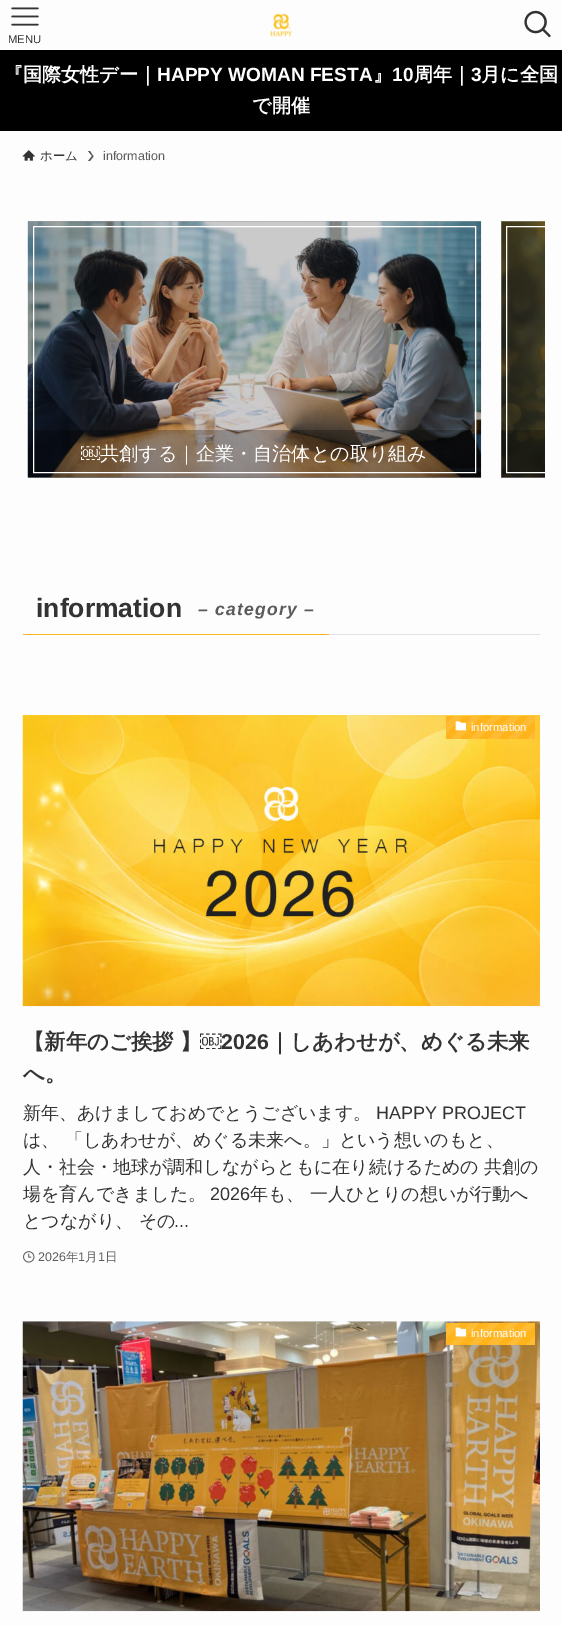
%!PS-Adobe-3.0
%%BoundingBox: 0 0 562 1626
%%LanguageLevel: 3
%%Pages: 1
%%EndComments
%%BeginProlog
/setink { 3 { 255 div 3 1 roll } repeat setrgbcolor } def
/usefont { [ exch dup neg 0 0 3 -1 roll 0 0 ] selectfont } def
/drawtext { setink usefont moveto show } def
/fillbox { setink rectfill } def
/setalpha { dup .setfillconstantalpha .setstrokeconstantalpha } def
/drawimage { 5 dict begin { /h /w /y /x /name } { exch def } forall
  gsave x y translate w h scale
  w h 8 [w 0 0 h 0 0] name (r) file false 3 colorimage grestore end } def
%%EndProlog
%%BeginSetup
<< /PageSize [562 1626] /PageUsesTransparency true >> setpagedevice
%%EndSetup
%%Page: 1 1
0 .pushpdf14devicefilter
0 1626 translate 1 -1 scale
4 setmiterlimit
0 0 562 1626 253 253 253 fillbox
(assets/img1.rgb) 270 13 23 24 drawimage
(assets/img2.rgb) 524 10 27 28 drawimage
(assets/img3.rgb) 11 7 28 19 drawimage
(MENU) 8 43 /LiberationSans-Regular 11.25 51 51 51 drawtext
0 50 562 81 0 0 0 fillbox
(『国際女性デー｜) 4 81 /WenQuanYiZenHei-Bold 19.1 255 255 255 drawtext
(HAPPY WOMAN FESTA) 157 81 /LiberationSans-Bold 19.1 255 255 255 drawtext
(』) 373 81 /WenQuanYiZenHei-Bold 19.1 255 255 255 drawtext
(10) 392 81 /LiberationSans-Bold 19.1 255 255 255 drawtext
(周年｜) 414 81 /WenQuanYiZenHei-Bold 19.1 255 255 255 drawtext
(3) 471 81 /LiberationSans-Bold 19.1 255 255 255 drawtext
(月に全国) 481 81 /WenQuanYiZenHei-Bold 19.1 255 255 255 drawtext
(で開催) 252 112 /WenQuanYiZenHei-Bold 19.1 255 255 255 drawtext
(assets/img4.rgb) 22 150 13 11 drawimage
(ホーム) 40 160 /WenQuanYiZenHei-Medium 12.5 51 51 51 drawtext
91 91 91 setink
90 151 moveto 88 151 lineto 92 156 lineto 88 161 lineto 90 161 lineto 93.5 156.5 lineto closepath fill
(information) 103 160 /LiberationSans-Regular 12.5 91 91 91 drawtext
28 221 453 257 162 162 162 fillbox
(assets/img5.rgb) 27 221 455 257 drawimage
0.25 setalpha
28 430 453 48 0 0 0 fillbox
1 setalpha
255 255 255 setink
33.5 226.5 442 246 rectstroke
(￼) 81 460 /LiberationSans-Regular 19.1 255 255 255 drawtext
(共創する｜企業・自治体との取り組み) 100 460 /WenQuanYiZenHei-Medium 19.1 255 255 255 drawtext
501 221 44 257 162 162 162 fillbox
(assets/img6.rgb) 501 221 44 257 drawimage
0.25 setalpha
501 430 44 48 0 0 0 fillbox
gsave
501 221 44 257 rectclip
1 setalpha
255 255 255 setink
506.5 226.5 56 246 rectstroke
grestore
1 setalpha
329 634 211 1 226 226 226 fillbox
23 634 306 1 255 180 27 fillbox
(information) 36 617 /LiberationSans-Bold 26.5 51 51 51 drawtext
/LiberationSans-BoldItalic 17.5 usefont
91 91 91 setink
198 615 moveto 1.25 0 (– category –) ashow
(assets/img7.rgb) 22 715 518 292 drawimage
gsave 446 716 moveto 535 716 lineto 535 739 lineto 446 739 lineto closepath clip newpath
<< /ShadingType 2 /ColorSpace /DeviceRGB /Coords [519 756 461 699] /Extend [true true] /Function << /FunctionType 3 /Domain [0 1] /Functions [<< /FunctionType 2 /Domain [0 1] /C0 [1 0.737 0.196] /C1 [1 0.737 0.196] /N 1 >> << /FunctionType 2 /Domain [0 1] /C0 [1 0.706 0.106] /C1 [1 0.706 0.106] /N 1 >> << /FunctionType 2 /Domain [0 1] /C0 [1 0.737 0.196] /C1 [1 0.737 0.196] /N 1 >> << /FunctionType 2 /Domain [0 1] /C0 [1 0.706 0.106] /C1 [1 0.706 0.106] /N 1 >> << /FunctionType 2 /Domain [0 1] /C0 [1 0.737 0.196] /C1 [1 0.737 0.196] /N 1 >> << /FunctionType 2 /Domain [0 1] /C0 [1 0.706 0.106] /C1 [1 0.706 0.106] /N 1 >> << /FunctionType 2 /Domain [0 1] /C0 [1 0.737 0.196] /C1 [1 0.737 0.196] /N 1 >> << /FunctionType 2 /Domain [0 1] /C0 [1 0.706 0.106] /C1 [1 0.706 0.106] /N 1 >> << /FunctionType 2 /Domain [0 1] /C0 [1 0.737 0.196] /C1 [1 0.737 0.196] /N 1 >> << /FunctionType 2 /Domain [0 1] /C0 [1 0.706 0.106] /C1 [1 0.706 0.106] /N 1 >> << /FunctionType 2 /Domain [0 1] /C0 [1 0.737 0.196] /C1 [1 0.737 0.196] /N 1 >> << /FunctionType 2 /Domain [0 1] /C0 [1 0.706 0.106] /C1 [1 0.706 0.106] /N 1 >>] /Bounds [0.08 0.17 0.25 0.33 0.42 0.5 0.58 0.67 0.75 0.83 0.92] /Encode [0 1 0 1 0 1 0 1 0 1 0 1 0 1 0 1 0 1 0 1 0 1 0 1] >> >> shfill grestore
(assets/img8.rgb) 455 721 11 10 drawimage
(information) 471 731 /LiberationSans-Regular 11.25 255 255 255 drawtext
(【新年のご挨拶 】) 23 1049 /WenQuanYiZenHei-Bold 21.4 51 51 51 drawtext
(￼2026) 200 1049 /LiberationSans-Bold 21.4 51 51 51 drawtext
(｜しあわせが、めぐる未来) 269 1049 /WenQuanYiZenHei-Bold 21.4 51 51 51 drawtext
(へ。) 23 1081 /WenQuanYiZenHei-Bold 21.4 51 51 51 drawtext
(新年、あけましておめでとうございます。) 23 1119 /WenQuanYiZenHei-Medium 18 51 51 51 drawtext
(HAPPY PROJECT) 376 1119 /LiberationSans-Regular 18 51 51 51 drawtext
(は、 「しあわせが、めぐる未来へ。」という想いのもと、) 23 1146 /WenQuanYiZenHei-Medium 18 51 51 51 drawtext
(人・社会・地球が調和しながらともに在り続けるための 共創の) 23 1173 /WenQuanYiZenHei-Medium 18 51 51 51 drawtext
(場を育んできました。) 23 1200 /WenQuanYiZenHei-Medium 18 51 51 51 drawtext
(2026) 210 1200 /LiberationSans-Regular 18 51 51 51 drawtext
(年も、 一人ひとりの想いが行動へ) 250 1200 /WenQuanYiZenHei-Medium 18 51 51 51 drawtext
(とつながり、 その) 23 1227 /WenQuanYiZenHei-Medium 18 51 51 51 drawtext
(...) 174 1227 /LiberationSans-Regular 18 51 51 51 drawtext
(assets/img9.rgb) 23 1251 12 12 drawimage
(2026) 38 1261 /LiberationSans-Regular 12.5 91 91 91 drawtext
(年) 66 1261 /WenQuanYiZenHei-Medium 12.5 91 91 91 drawtext
(1) 78 1261 /LiberationSans-Regular 12.5 91 91 91 drawtext
(月) 85 1261 /WenQuanYiZenHei-Medium 12.5 91 91 91 drawtext
(1) 98 1261 /LiberationSans-Regular 12.5 91 91 91 drawtext
(日) 105 1261 /WenQuanYiZenHei-Medium 12.5 91 91 91 drawtext
(assets/img10.rgb) 22 1321 518 291 drawimage
gsave 446 1323 moveto 535 1323 lineto 535 1345 lineto 446 1345 lineto closepath clip newpath
<< /ShadingType 2 /ColorSpace /DeviceRGB /Coords [519 1361 461 1304] /Extend [true true] /Function << /FunctionType 3 /Domain [0 1] /Functions [<< /FunctionType 2 /Domain [0 1] /C0 [1 0.737 0.196] /C1 [1 0.737 0.196] /N 1 >> << /FunctionType 2 /Domain [0 1] /C0 [1 0.706 0.106] /C1 [1 0.706 0.106] /N 1 >> << /FunctionType 2 /Domain [0 1] /C0 [1 0.737 0.196] /C1 [1 0.737 0.196] /N 1 >> << /FunctionType 2 /Domain [0 1] /C0 [1 0.706 0.106] /C1 [1 0.706 0.106] /N 1 >> << /FunctionType 2 /Domain [0 1] /C0 [1 0.737 0.196] /C1 [1 0.737 0.196] /N 1 >> << /FunctionType 2 /Domain [0 1] /C0 [1 0.706 0.106] /C1 [1 0.706 0.106] /N 1 >> << /FunctionType 2 /Domain [0 1] /C0 [1 0.737 0.196] /C1 [1 0.737 0.196] /N 1 >> << /FunctionType 2 /Domain [0 1] /C0 [1 0.706 0.106] /C1 [1 0.706 0.106] /N 1 >> << /FunctionType 2 /Domain [0 1] /C0 [1 0.737 0.196] /C1 [1 0.737 0.196] /N 1 >> << /FunctionType 2 /Domain [0 1] /C0 [1 0.706 0.106] /C1 [1 0.706 0.106] /N 1 >> << /FunctionType 2 /Domain [0 1] /C0 [1 0.737 0.196] /C1 [1 0.737 0.196] /N 1 >> << /FunctionType 2 /Domain [0 1] /C0 [1 0.706 0.106] /C1 [1 0.706 0.106] /N 1 >>] /Bounds [0.08 0.17 0.25 0.33 0.42 0.5 0.58 0.67 0.75 0.83 0.92] /Encode [0 1 0 1 0 1 0 1 0 1 0 1 0 1 0 1 0 1 0 1 0 1 0 1] >> >> shfill grestore
(assets/img11.rgb) 455 1327 11 10 drawimage
(information) 471 1337 /LiberationSans-Regular 11.25 255 255 255 drawtext
.poppdf14devicefilter showpage
%%EOF
